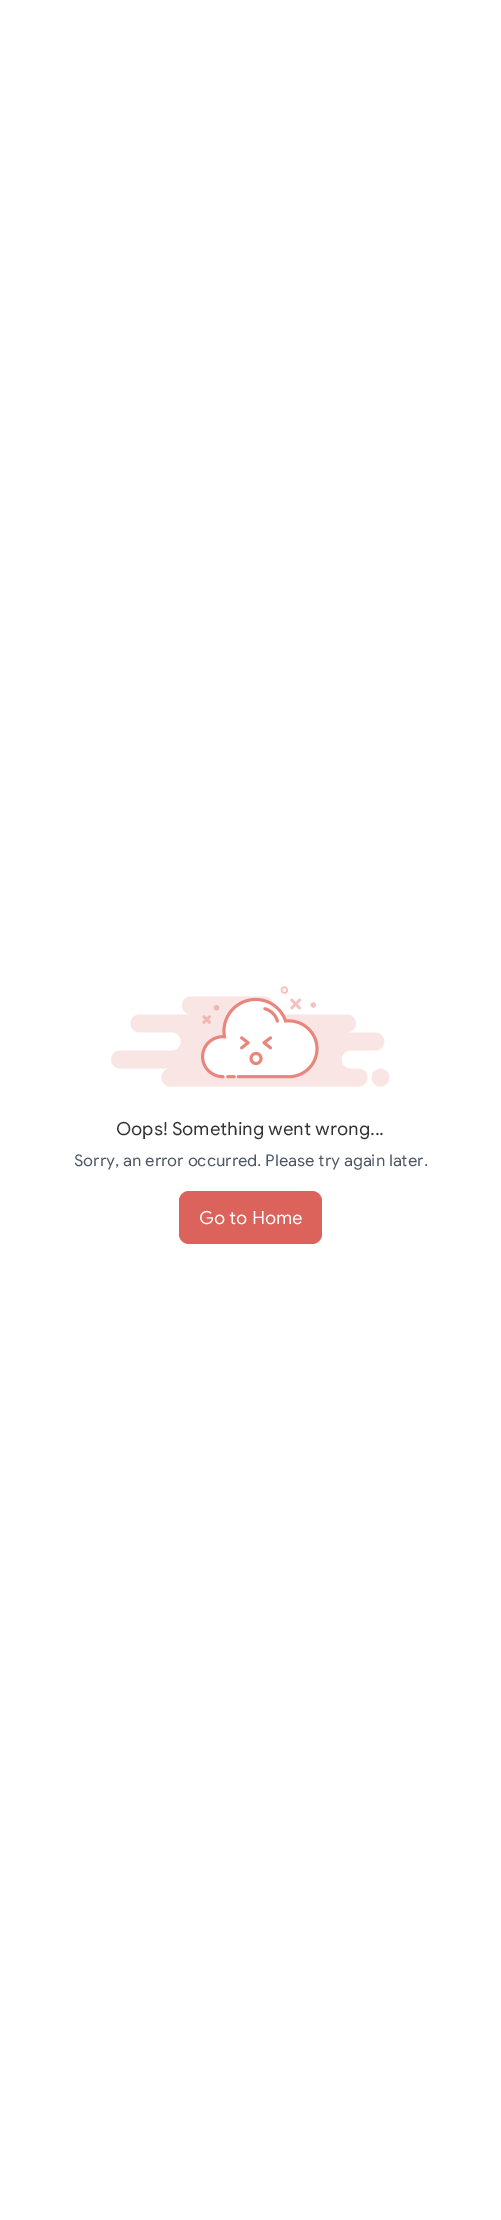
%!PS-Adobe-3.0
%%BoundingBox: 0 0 501 2220
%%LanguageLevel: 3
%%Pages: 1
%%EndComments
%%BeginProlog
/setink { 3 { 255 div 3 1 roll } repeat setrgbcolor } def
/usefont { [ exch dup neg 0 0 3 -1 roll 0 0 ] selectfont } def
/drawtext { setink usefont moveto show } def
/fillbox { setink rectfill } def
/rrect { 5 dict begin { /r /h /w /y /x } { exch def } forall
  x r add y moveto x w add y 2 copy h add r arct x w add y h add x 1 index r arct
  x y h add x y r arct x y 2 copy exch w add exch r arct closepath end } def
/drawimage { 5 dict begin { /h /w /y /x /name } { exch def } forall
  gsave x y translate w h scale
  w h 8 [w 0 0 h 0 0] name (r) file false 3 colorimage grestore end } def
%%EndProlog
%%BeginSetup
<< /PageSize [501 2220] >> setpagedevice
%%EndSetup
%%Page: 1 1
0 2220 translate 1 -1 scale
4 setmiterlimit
0 0 501 2220 255 255 255 fillbox
(assets/img1.rgb) 111 986 279 101 drawimage
(Oops! Something went wrong...) 116 1135 /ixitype-Regular 18 51 51 51 drawtext
(Sorry, an error occurred. Please try again later.) 74 1166 /ixitype-Regular 16 75 85 99 drawtext
220 99 91 setink
179 1191 143 53 10 rrect fill
(Go to Home) 199 1224 /ixitype-Regular 18 255 255 255 drawtext
showpage
%%EOF
